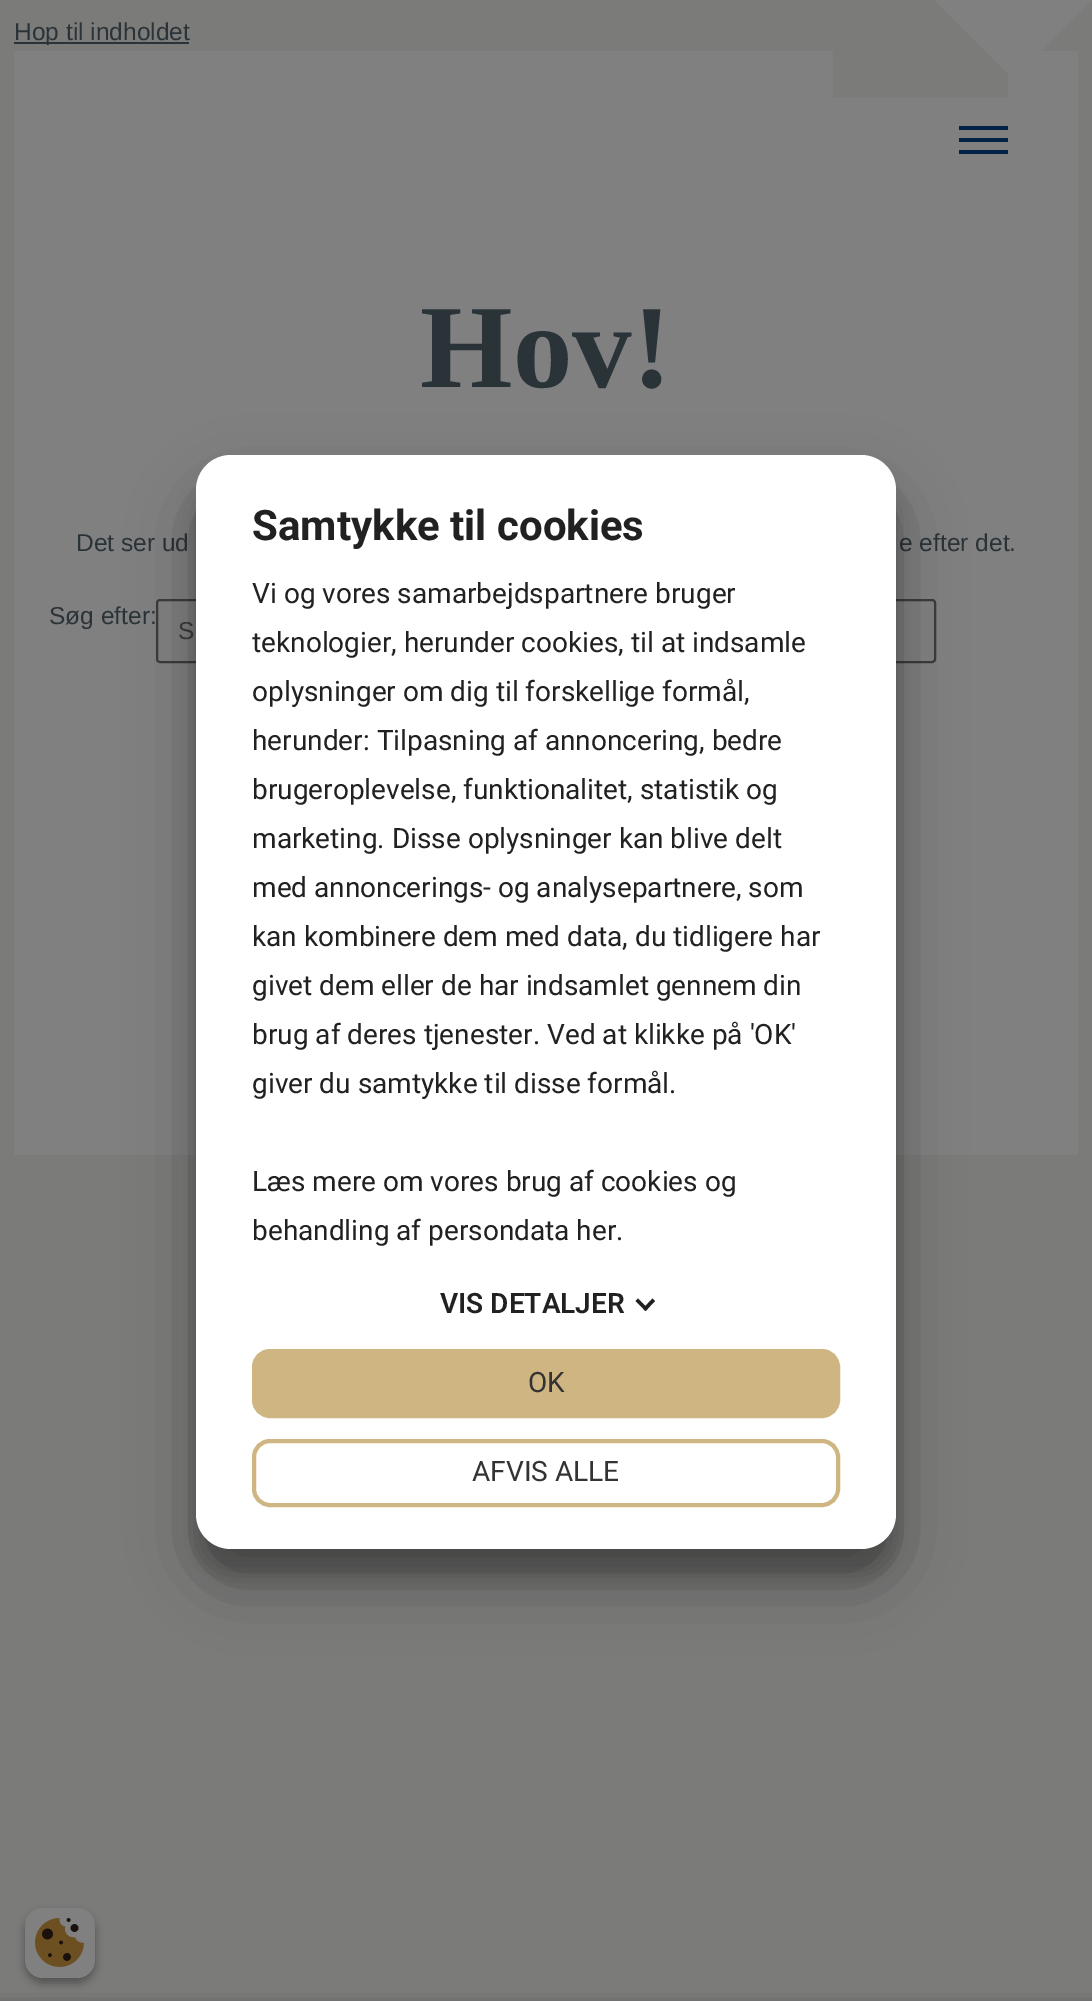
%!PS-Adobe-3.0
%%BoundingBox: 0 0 1092 2001
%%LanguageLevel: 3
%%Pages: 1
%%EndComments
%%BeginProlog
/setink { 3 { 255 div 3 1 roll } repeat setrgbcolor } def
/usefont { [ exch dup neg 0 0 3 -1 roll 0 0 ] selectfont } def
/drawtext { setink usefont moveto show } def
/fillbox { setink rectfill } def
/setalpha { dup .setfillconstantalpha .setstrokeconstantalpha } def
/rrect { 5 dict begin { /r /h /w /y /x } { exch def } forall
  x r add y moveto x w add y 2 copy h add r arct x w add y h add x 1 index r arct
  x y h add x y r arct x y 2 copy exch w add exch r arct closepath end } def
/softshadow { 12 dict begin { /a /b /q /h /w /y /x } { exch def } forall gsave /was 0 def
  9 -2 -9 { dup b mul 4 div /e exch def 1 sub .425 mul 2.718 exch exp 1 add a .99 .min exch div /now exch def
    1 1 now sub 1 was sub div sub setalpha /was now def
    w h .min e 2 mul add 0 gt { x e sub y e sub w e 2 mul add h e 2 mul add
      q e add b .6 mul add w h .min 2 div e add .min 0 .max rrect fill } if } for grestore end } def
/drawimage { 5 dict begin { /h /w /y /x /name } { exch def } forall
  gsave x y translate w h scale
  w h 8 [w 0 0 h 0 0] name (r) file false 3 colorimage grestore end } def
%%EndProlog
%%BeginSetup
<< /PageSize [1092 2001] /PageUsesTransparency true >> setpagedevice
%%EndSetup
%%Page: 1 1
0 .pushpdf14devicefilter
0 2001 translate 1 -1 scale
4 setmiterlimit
0 0 1092 2001 123 123 122 fillbox
14 42 175 2 42 51 56 fillbox
(Hop til indholdet) 14 40 /LiberationSans-Regular 24.5 42 51 56 drawtext
14 51 1064 1104 128 128 128 fillbox
833 51 175 47 123 123 122 fillbox
128 128 128 setink
934 0 moveto 1092 0 lineto 1013 79 lineto closepath fill
959 126 49 4 0 34 68 fillbox
959 138 49 4 0 34 68 fillbox
959 150 49 4 0 34 68 fillbox
(Hov!) 420 387 /LiberationSerif-Bold 119 42 51 56 drawtext
(Det ser ud) 76 551 /LiberationSans-Regular 24.5 42 51 56 drawtext
(e efter det.) 899 551 /LiberationSans-Regular 24.5 42 51 56 drawtext
(Søg efter:) 49 624 /LiberationSans-Regular 24.5 42 51 56 drawtext
59 59 59 setink
2 setlinewidth
157 600 778 62 3 rrect stroke
(S) 178 639 /LiberationSans-Regular 24.5 59 59 59 drawtext
0 0 0 setink
196 481 700 1094 35 10.5 0.22 softshadow
196 488 700 1094 35 33 0.3 softshadow
255 255 255 setink
196 455 700 1094 35 rrect fill
(Samtykke til cookies) 252 540 /Roboto-Bold 42 33 33 33 drawtext
(Vi og vores samarbejdspartnere bruger) 252 603 /Roboto-Regular 28 33 33 33 drawtext
(teknologier, herunder cookies, til at indsamle) 252 652 /Roboto-Regular 28 33 33 33 drawtext
(oplysninger om dig til forskellige formål,) 252 701 /Roboto-Regular 28 33 33 33 drawtext
(herunder: Tilpasning af annoncering, bedre) 252 750 /Roboto-Regular 28 33 33 33 drawtext
(brugeroplevelse, funktionalitet, statistik og) 252 799 /Roboto-Regular 28 33 33 33 drawtext
(marketing. Disse oplysninger kan blive delt) 252 848 /Roboto-Regular 28 33 33 33 drawtext
(med annoncerings- og analysepartnere, som) 252 897 /Roboto-Regular 28 33 33 33 drawtext
(kan kombinere dem med data, du tidligere har) 252 946 /Roboto-Regular 28 33 33 33 drawtext
(givet dem eller de har indsamlet gennem din) 252 995 /Roboto-Regular 28 33 33 33 drawtext
(brug af deres tjenester. Ved at klikke på 'OK') 252 1044 /Roboto-Regular 28 33 33 33 drawtext
(giver du samtykke til disse formål.) 252 1093 /Roboto-Regular 28 33 33 33 drawtext
(Læs mere om vores brug af cookies og) 252 1191 /Roboto-Regular 28 33 33 33 drawtext
(behandling af persondata her.) 252 1240 /Roboto-Regular 28 33 33 33 drawtext
(VIS DETALJER) 440 1313 /Roboto-SemiBold 28 33 33 33 drawtext
652.5 1298.5 moveto 655 1301 lineto 645.5 1311 lineto 643 1308.5 lineto closepath fill
638 1298.5 moveto 648 1308.5 lineto 645.5 1311 lineto 635.5 1301 lineto closepath fill
206 181 130 setink
254 1351 584 65 16 rrect gsave fill grestore
4 setlinewidth
stroke
(OK) 528 1392 /Roboto-Regular 28 51 51 51 drawtext
206 181 130 setink
254 1441 584 64 16 rrect stroke
(AFVIS ALLE) 472 1481 /Roboto-Regular 28 51 51 51 drawtext
0 0 0 setink
25 1913 70 70 18 5 0.23 softshadow
25 1913 70 70 18 5 0.16 softshadow
128 128 128 setink
25 1908 70 70 18 rrect fill
(assets/img1.rgb) 35 1918 49 49 drawimage
0 0 0 setink
-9 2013 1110 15 0 9 1 softshadow
.poppdf14devicefilter showpage
%%EOF
